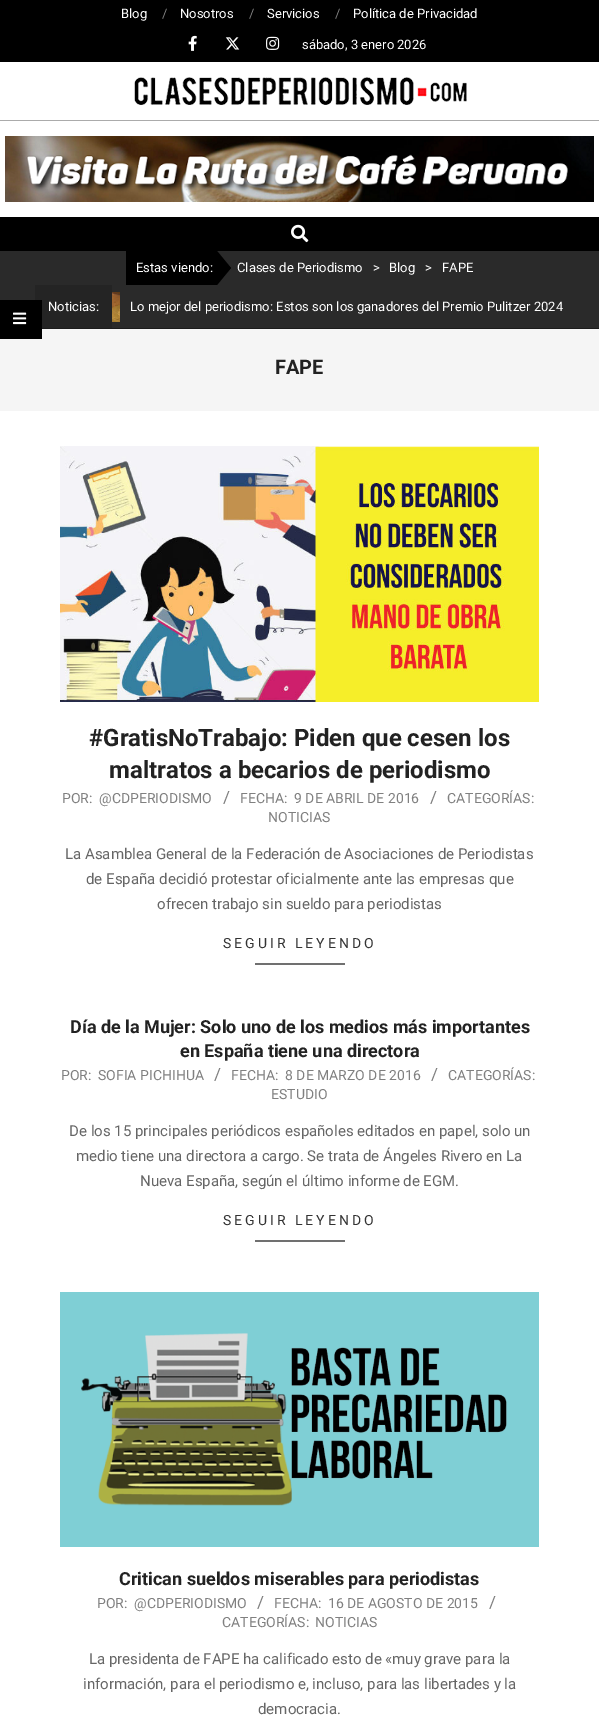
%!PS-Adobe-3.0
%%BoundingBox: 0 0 599 1733
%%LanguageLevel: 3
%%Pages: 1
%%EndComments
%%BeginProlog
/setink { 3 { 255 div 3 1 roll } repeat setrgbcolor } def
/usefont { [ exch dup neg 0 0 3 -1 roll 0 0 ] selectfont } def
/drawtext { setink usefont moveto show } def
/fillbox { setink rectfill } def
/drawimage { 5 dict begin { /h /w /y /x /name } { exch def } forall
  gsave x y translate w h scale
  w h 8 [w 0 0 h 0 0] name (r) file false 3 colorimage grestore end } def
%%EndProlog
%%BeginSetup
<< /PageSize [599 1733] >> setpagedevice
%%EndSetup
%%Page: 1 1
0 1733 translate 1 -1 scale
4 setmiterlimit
0 0 599 1733 255 255 255 fillbox
0 0 599 62 0 0 0 fillbox
(Blog) 121 18 /Roboto-Regular 13 255 255 255 drawtext
(/) 162 18 /Roboto-Regular 13 128 128 128 drawtext
(Nosotros) 180 18 /Roboto-Regular 13 255 255 255 drawtext
(/) 249 18 /Roboto-Regular 13 128 128 128 drawtext
(Servicios) 267 18 /Roboto-Regular 13 255 255 255 drawtext
(/) 335 18 /Roboto-Regular 13 128 128 128 drawtext
(Política de Privacidad) 353 18 /Roboto-Regular 13 255 255 255 drawtext
(assets/img1.rgb) 188 35 9 16 drawimage
(assets/img2.rgb) 225 37 15 13 drawimage
(assets/img3.rgb) 266 36 14 14 drawimage
(sábado, 3 enero 2026) 302 49 /Roboto-Regular 13 255 255 255 drawtext
(assets/img4.rgb) 134 77 333 28 drawimage
0 120 599 1 171 171 171 fillbox
(assets/img5.rgb) 5 136 589 66 drawimage
0 217 599 34 0 0 0 fillbox
(assets/img6.rgb) 291 224 18 19 drawimage
0 251 599 77 42 42 42 fillbox
35 285 77 43 36 36 36 fillbox
0 329 599 82 245 245 245 fillbox
0 300 42 39 0 0 0 fillbox
(assets/img7.rgb) 13 312 14 13 drawimage
42 328 557 1 28 28 28 fillbox
126 251 91 34 0 0 0 fillbox
(Estas viendo:) 136 272 /Roboto-Regular 13 255 255 255 drawtext
0 0 0 setink
217 285 moveto 217 251 lineto 231 268 lineto closepath fill
(Clases de Periodismo) 237 272 /Roboto-Regular 13 255 255 255 drawtext
(>) 373 272 /Roboto-Regular 13 255 255 255 drawtext
(Blog) 389 272 /Roboto-Regular 13 255 255 255 drawtext
(>) 425 272 /Roboto-Regular 13 255 255 255 drawtext
(FAPE) 442 272 /Roboto-Regular 13 255 255 255 drawtext
(Noticias:) 48 311 /Roboto-Regular 13 255 255 255 drawtext
(assets/img8.rgb) 112 292 8 30 drawimage
(Lo mejor del periodismo: Estos son los ganadores del Premio Pulitzer 2024) 130 311 /Roboto-Regular 13 255 255 255 drawtext
(FAPE) 275 374 /Roboto-Bold 20 34 34 34 drawtext
(assets/img9.rgb) 60 446 479 256 drawimage
(#GratisNoTrabajo: Piden que cesen los) 89 746 /Roboto-Bold 24 34 34 34 drawtext
(maltratos a becarios de periodismo) 109 778 /Roboto-Bold 24 34 34 34 drawtext
(POR:) 62 803 /Roboto-Regular 14 128 128 128 drawtext
(@CDPERIODISMO) 99 803 /Roboto-Regular 14 128 128 128 drawtext
(/) 223 803 /Roboto-Regular 17 128 128 128 drawtext
(FECHA:) 240 803 /Roboto-Regular 14 128 128 128 drawtext
(9 DE ABRIL DE 2016) 294 803 /Roboto-Regular 14 128 128 128 drawtext
(/) 430 803 /Roboto-Regular 17 128 128 128 drawtext
(CATEGORÍAS:) 447 803 /Roboto-Regular 14 128 128 128 drawtext
(NOTICIAS) 268 822 /Roboto-Regular 14 128 128 128 drawtext
(La Asamblea General de la Federación de Asociaciones de Periodistas) 65 859 /Roboto-Regular 15 102 102 102 drawtext
(de España decidió protestar oficialmente ante las empresas que) 86 884 /Roboto-Regular 15 102 102 102 drawtext
(ofrecen trabajo sin sueldo para periodistas) 157 909 /Roboto-Regular 15 102 102 102 drawtext
/Roboto-Regular 14 usefont
51 51 51 setink
223 948 moveto 3 0 (SEGUIR LEYENDO) ashow
255 963 90 2 112 112 112 fillbox
(Día de la Mujer: Solo uno de los medios más importantes) 70 1033 /Roboto-Bold 18 34 34 34 drawtext
(en España tiene una directora) 180 1057 /Roboto-Bold 18 34 34 34 drawtext
(POR:) 61 1080 /Roboto-Regular 14 128 128 128 drawtext
(SOFIA PICHIHUA) 98 1080 /Roboto-Regular 14 128 128 128 drawtext
(/) 214 1080 /Roboto-Regular 17 128 128 128 drawtext
(FECHA:) 231 1080 /Roboto-Regular 14 128 128 128 drawtext
(8 DE MARZO DE 2016) 285 1080 /Roboto-Regular 14 128 128 128 drawtext
(/) 431 1080 /Roboto-Regular 17 128 128 128 drawtext
(CATEGORÍAS:) 448 1080 /Roboto-Regular 14 128 128 128 drawtext
(ESTUDIO) 271 1099 /Roboto-Regular 14 128 128 128 drawtext
(De los 15 principales periódicos españoles editados en papel, solo un) 69 1136 /Roboto-Regular 15 102 102 102 drawtext
(medio tiene una directora a cargo. Se trata de Ángeles Rivero en La) 76 1161 /Roboto-Regular 15 102 102 102 drawtext
(Nueva España, según el último informe de EGM.) 140 1186 /Roboto-Regular 15 102 102 102 drawtext
/Roboto-Regular 14 usefont
51 51 51 setink
223 1225 moveto 3 0 (SEGUIR LEYENDO) ashow
255 1240 90 2 112 112 112 fillbox
(assets/img10.rgb) 60 1292 479 255 drawimage
(Critican sueldos miserables para periodistas) 119 1585 /Roboto-Bold 18 34 34 34 drawtext
(POR:) 97 1608 /Roboto-Regular 14 128 128 128 drawtext
(@CDPERIODISMO) 134 1608 /Roboto-Regular 14 128 128 128 drawtext
(/) 257 1608 /Roboto-Regular 17 128 128 128 drawtext
(FECHA:) 274 1608 /Roboto-Regular 14 128 128 128 drawtext
(16 DE AGOSTO DE 2015) 328 1608 /Roboto-Regular 14 128 128 128 drawtext
(/) 489 1608 /Roboto-Regular 17 128 128 128 drawtext
(CATEGORÍAS:) 222 1627 /Roboto-Regular 14 128 128 128 drawtext
(NOTICIAS) 315 1627 /Roboto-Regular 14 128 128 128 drawtext
(La presidenta de FAPE ha calificado esto de «muy grave para la) 89 1664 /Roboto-Regular 15 102 102 102 drawtext
(información, para el periodismo e, incluso, para las libertades y la) 83 1689 /Roboto-Regular 15 102 102 102 drawtext
(democracia.) 258 1714 /Roboto-Regular 15 102 102 102 drawtext
showpage
%%EOF
